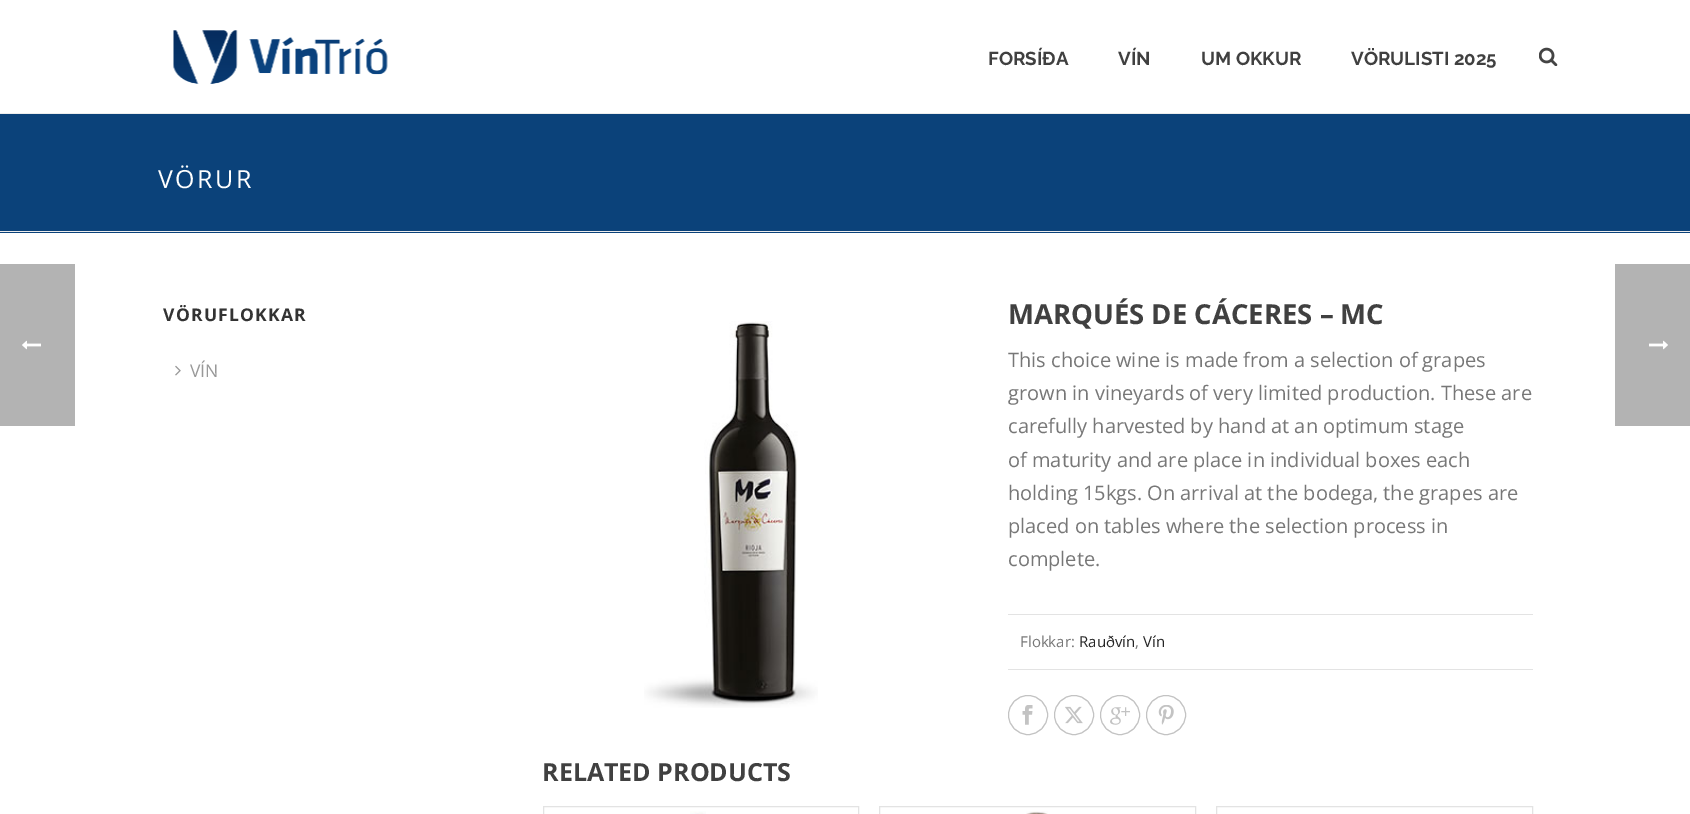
%!PS-Adobe-3.0
%%BoundingBox: 0 0 1690 814
%%LanguageLevel: 3
%%Pages: 1
%%EndComments
%%BeginProlog
/setink { 3 { 255 div 3 1 roll } repeat setrgbcolor } def
/usefont { [ exch dup neg 0 0 3 -1 roll 0 0 ] selectfont } def
/drawtext { setink usefont moveto show } def
/fillbox { setink rectfill } def
/disc { newpath 0 360 arc closepath } def
/drawimage { 5 dict begin { /h /w /y /x /name } { exch def } forall
  gsave x y translate w h scale
  w h 8 [w 0 0 h 0 0] name (r) file false 3 colorimage grestore end } def
%%EndProlog
%%BeginSetup
<< /PageSize [1690 814] >> setpagedevice
%%EndSetup
%%Page: 1 1
0 814 translate 1 -1 scale
4 setmiterlimit
0 0 1690 814 255 255 255 fillbox
0 264 75 162 179 179 179 fillbox
(assets/img1.rgb) 22 340 19 10 drawimage
0 114 1690 119 11 66 122 fillbox
0 231 1690 1 237 237 237 fillbox
0 113 1690 1 237 237 237 fillbox
(assets/img2.rgb) 173 30 215 54 drawimage
(FORSÍÐA) 988 65 /Raleway-Bold 18.75 64 64 64 drawtext
(VÍN) 1118 65 /Raleway-Bold 18.75 64 64 64 drawtext
(UM OKKUR) 1201 65 /Raleway-Bold 18.75 64 64 64 drawtext
(VÖRULISTI 2025) 1351 65 /Raleway-Bold 18.75 64 64 64 drawtext
(assets/img3.rgb) 1539 47 19 19 drawimage
/OpenSans-Regular 25 usefont
255 255 255 setink
158 188 moveto 2.5 0 (VÖRUR) ashow
/OpenSans-Bold 17.5 usefont
51 51 51 setink
163 321 moveto 1.25 0 (VÖRUFLOKKAR) ashow
(assets/img4.rgb) 175 365 6 11 drawimage
(VÍN) 190 377 /OpenSans-Regular 17.5 153 153 153 drawtext
(assets/img5.rgb) 644 321 174 387 drawimage
(MARQUÉS DE CÁCERES – MC) 1008 324 /OpenSans-Bold 27.5 64 64 64 drawtext
(This choice wine is made from a selection of grapes) 1008 367 /OpenSans-Regular 20 119 119 119 drawtext
(grown in vineyards of very limited production. These are) 1008 400 /OpenSans-Regular 20 119 119 119 drawtext
(carefully harvested by hand at an optimum stage) 1008 433 /OpenSans-Regular 20 119 119 119 drawtext
(of maturity and are place in individual boxes each) 1008 467 /OpenSans-Regular 20 119 119 119 drawtext
(holding 15kgs. On arrival at the bodega, the grapes are) 1008 500 /OpenSans-Regular 20 119 119 119 drawtext
(placed on tables where the selection process in) 1008 533 /OpenSans-Regular 20 119 119 119 drawtext
(complete.) 1008 566 /OpenSans-Regular 20 119 119 119 drawtext
1008 614 525 1 227 227 227 fillbox
1008 669 525 1 227 227 227 fillbox
(Flokkar:) 1020 647 /OpenSans-Regular 15 119 119 119 drawtext
(Rauðvín) 1079 647 /OpenSans-Regular 15 37 37 37 drawtext
(,) 1135 647 /OpenSans-Regular 15 119 119 119 drawtext
(Vín) 1143 647 /OpenSans-Regular 15 37 37 37 drawtext
195 195 195 setink
1028 715 19.5 disc stroke
(assets/img6.rgb) 1022 705 11 20 drawimage
1074 715 19.5 disc stroke
(assets/img7.rgb) 1065 706 18 18 drawimage
1120 715 19.5 disc stroke
(assets/img8.rgb) 1110 707 20 18 drawimage
1166 715 19.5 disc stroke
(assets/img9.rgb) 1158 705 16 20 drawimage
(RELATED PRODUCTS) 542 781 /OpenSans-Bold 25 64 64 64 drawtext
227 227 227 setink
543.5 806.5 315 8 rectstroke
(assets/img10.rgb) 690 811 16 3 drawimage
879.5 806.5 316 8 rectstroke
(assets/img11.rgb) 1026 811 22 3 drawimage
1216.5 806.5 316 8 rectstroke
1615 264 75 162 179 179 179 fillbox
(assets/img12.rgb) 1649 340 19 10 drawimage
showpage
%%EOF
